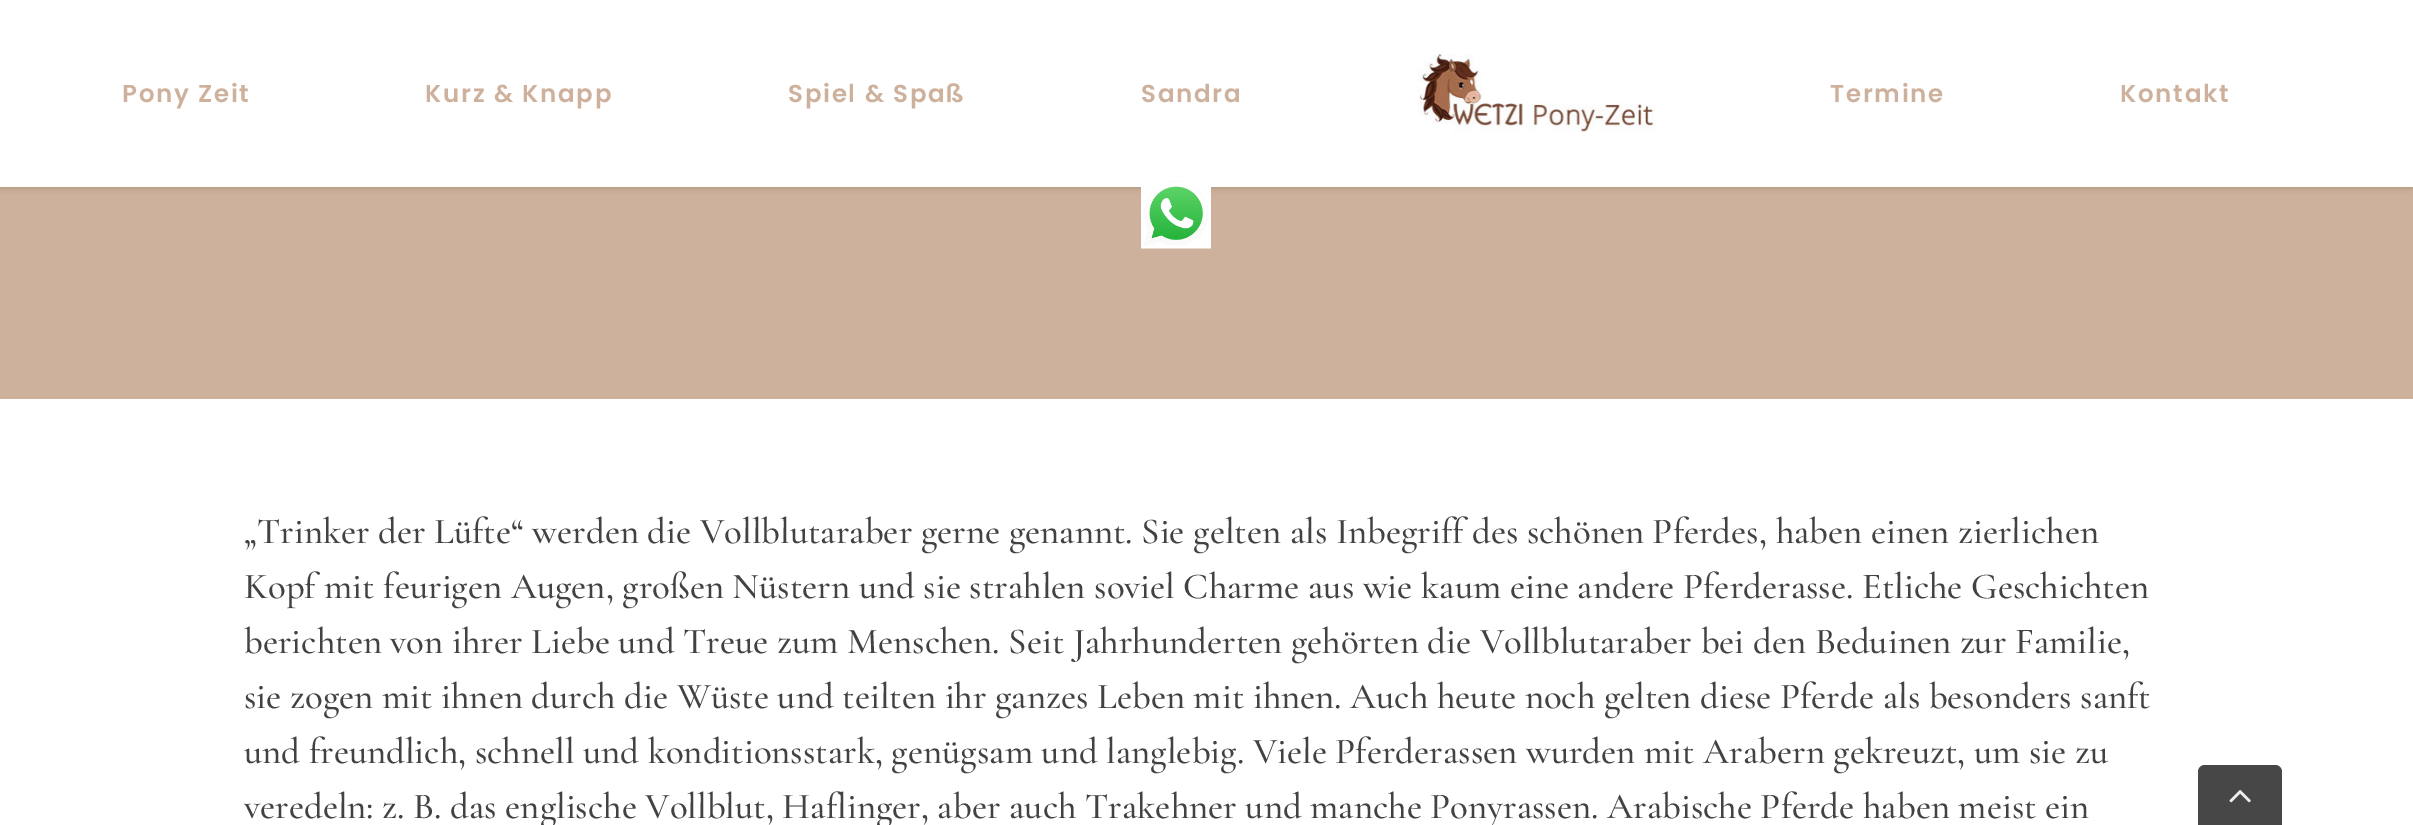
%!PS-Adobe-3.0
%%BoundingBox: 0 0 2413 825
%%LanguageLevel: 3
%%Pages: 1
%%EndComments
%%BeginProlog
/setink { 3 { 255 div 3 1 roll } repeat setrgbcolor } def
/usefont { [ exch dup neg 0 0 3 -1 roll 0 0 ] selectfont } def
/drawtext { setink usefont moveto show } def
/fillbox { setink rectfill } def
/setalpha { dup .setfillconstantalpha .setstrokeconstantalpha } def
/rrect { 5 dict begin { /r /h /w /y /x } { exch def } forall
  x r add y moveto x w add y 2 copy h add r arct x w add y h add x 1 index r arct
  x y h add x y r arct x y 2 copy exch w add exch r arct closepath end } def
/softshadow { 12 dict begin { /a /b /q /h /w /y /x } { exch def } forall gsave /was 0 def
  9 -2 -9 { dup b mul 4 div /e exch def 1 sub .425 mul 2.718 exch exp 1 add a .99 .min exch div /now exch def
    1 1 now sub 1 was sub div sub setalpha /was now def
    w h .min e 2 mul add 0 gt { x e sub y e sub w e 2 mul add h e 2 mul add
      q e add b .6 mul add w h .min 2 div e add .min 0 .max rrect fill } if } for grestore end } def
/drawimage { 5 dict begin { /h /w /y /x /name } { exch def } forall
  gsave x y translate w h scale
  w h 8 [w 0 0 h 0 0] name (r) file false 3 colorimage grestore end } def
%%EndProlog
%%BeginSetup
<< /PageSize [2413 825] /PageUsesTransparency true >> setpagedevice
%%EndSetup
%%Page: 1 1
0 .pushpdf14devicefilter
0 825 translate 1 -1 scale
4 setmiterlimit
0 0 2413 825 255 255 255 fillbox
0 187 2413 212 206 177 156 fillbox
0 0 0 setink
0 2 2413 187 0 2.5 0.12 softshadow
0 0 2413 187 255 255 255 fillbox
/Poppins-SemiBold 24.5 usefont
206 177 156 setink
122 102 moveto 1.75 0 (Pony Zeit) ashow
425 102 moveto 1.75 0 (Kurz & Knapp) ashow
788 102 moveto 1.75 0 (Spiel & Spaß) ashow
1141 102 moveto 1.75 0 (Sandra) ashow
(assets/img1.rgb) 1417 54 239 78 drawimage
1830 102 moveto 1.75 0 (Termine) ashow
2120 102 moveto 1.75 0 (Kontakt) ashow
(assets/img2.rgb) 1141 181 70 68 drawimage
(„Trinker der Lüfte“ werden die Vollblutaraber gerne genannt. Sie gelten als Inbegriff des schönen Pferdes, haben einen zierlichen) 244 543 /CormorantGaramond-Medium 36.75 66 66 66 drawtext
(Kopf mit feurigen Augen, großen Nüstern und sie strahlen soviel Charme aus wie kaum eine andere Pferderasse. Etliche Geschichten) 244 598 /CormorantGaramond-Medium 36.75 66 66 66 drawtext
(berichten von ihrer Liebe und Treue zum Menschen. Seit Jahrhunderten gehörten die Vollblutaraber bei den Beduinen zur Familie,) 244 653 /CormorantGaramond-Medium 36.75 66 66 66 drawtext
(sie zogen mit ihnen durch die Wüste und teilten ihr ganzes Leben mit ihnen. Auch heute noch gelten diese Pferde als besonders sanft) 244 708 /CormorantGaramond-Medium 36.75 66 66 66 drawtext
(und freundlich, schnell und konditionsstark, genügsam und langlebig. Viele Pferderassen wurden mit Arabern gekreuzt, um sie zu) 244 763 /CormorantGaramond-Medium 36.75 66 66 66 drawtext
(veredeln: z. B. das englische Vollblut, Haflinger, aber auch Trakehner und manche Ponyrassen. Arabische Pferde haben meist ein) 244 818 /CormorantGaramond-Medium 36.75 66 66 66 drawtext
71 71 71 setink
2205 765 moveto 2275 765 lineto 2279 765 2282 768 2282 772 curveto 2282 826 lineto 2198 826 lineto 2198 772 lineto 2198 768 2201 765 2205 765 curveto closepath fill
(assets/img3.rgb) 2229 790 22 13 drawimage
.poppdf14devicefilter showpage
%%EOF
